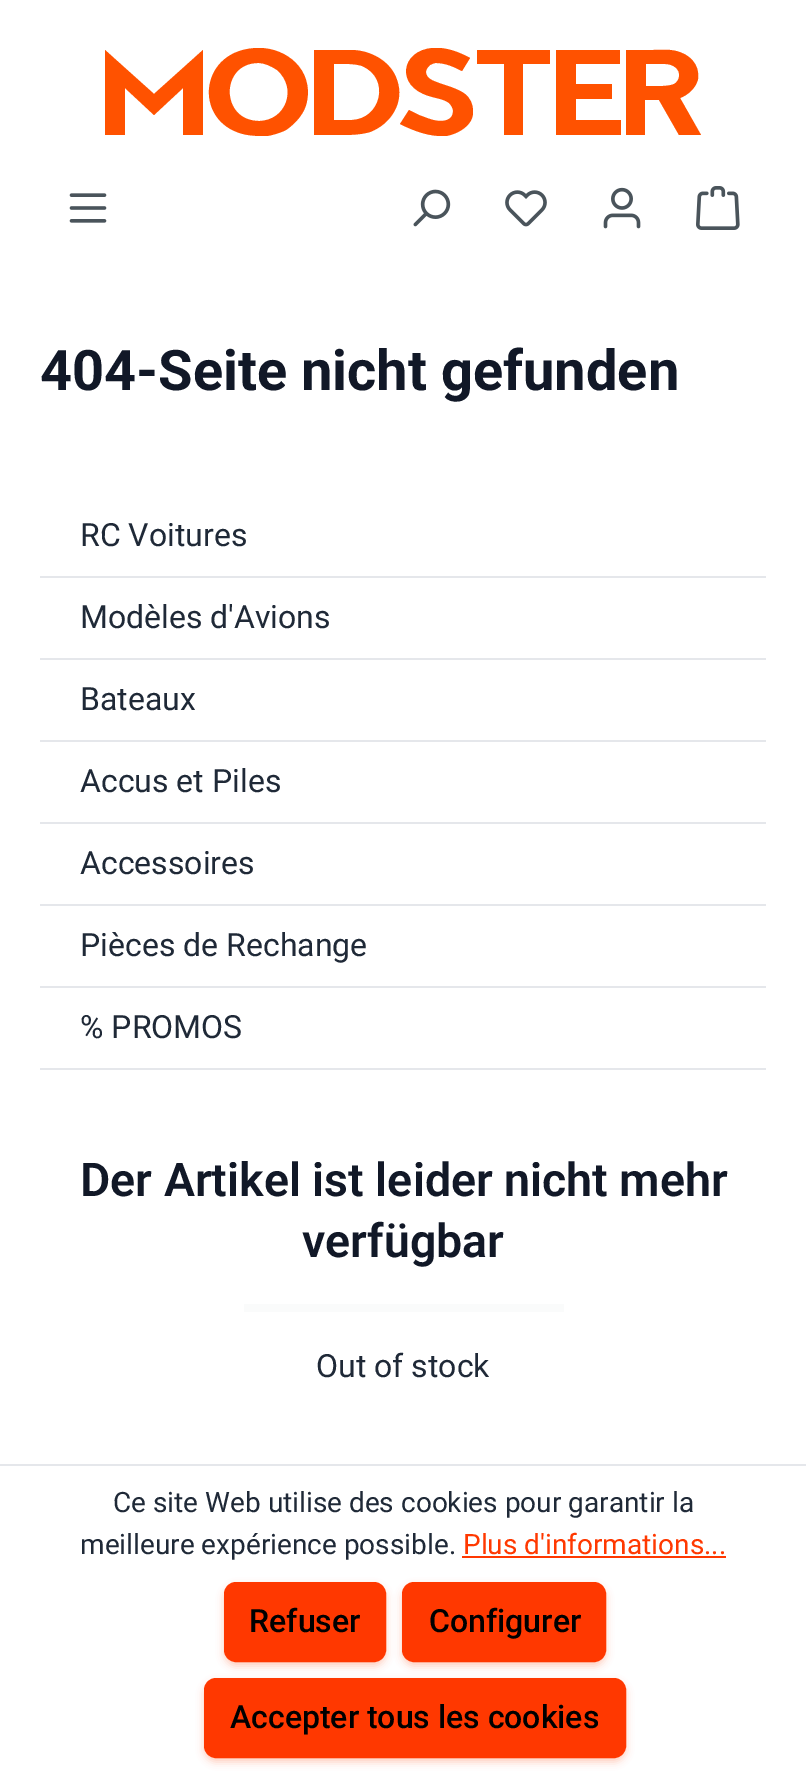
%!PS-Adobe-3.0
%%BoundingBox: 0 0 806 1773
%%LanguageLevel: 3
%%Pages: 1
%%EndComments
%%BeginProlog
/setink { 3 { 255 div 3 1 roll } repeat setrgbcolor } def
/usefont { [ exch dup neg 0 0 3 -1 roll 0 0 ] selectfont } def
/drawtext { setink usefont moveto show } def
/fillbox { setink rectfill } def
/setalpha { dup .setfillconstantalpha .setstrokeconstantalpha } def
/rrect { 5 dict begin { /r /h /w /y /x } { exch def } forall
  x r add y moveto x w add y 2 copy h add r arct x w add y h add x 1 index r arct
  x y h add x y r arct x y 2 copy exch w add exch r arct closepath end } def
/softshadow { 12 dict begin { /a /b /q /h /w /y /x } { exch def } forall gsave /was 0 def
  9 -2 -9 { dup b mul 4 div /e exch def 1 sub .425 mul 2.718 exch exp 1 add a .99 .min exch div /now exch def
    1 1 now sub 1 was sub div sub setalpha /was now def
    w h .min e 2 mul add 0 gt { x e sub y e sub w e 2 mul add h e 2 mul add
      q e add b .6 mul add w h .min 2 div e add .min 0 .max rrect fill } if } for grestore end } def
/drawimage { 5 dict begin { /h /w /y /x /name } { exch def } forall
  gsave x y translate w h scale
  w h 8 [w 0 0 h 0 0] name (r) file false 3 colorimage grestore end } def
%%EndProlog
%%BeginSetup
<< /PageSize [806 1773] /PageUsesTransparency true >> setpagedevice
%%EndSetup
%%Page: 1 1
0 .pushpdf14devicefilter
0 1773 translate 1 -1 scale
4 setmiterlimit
0 0 806 1773 255 255 255 fillbox
255 82 0 setink
154 94 moveto 203 50 lineto 203 135 lineto 183 135 lineto 183 88 lineto 154 115 lineto 125 88 lineto 125 135 lineto 105 135 lineto 105 50 lineto closepath fill
259 48 moveto 199 48 192 121 243 134 curveto 251 136 259 136 267 136 curveto 273 135 280 133 286 130 curveto 296 123 305 113 307 101 curveto 313 70 287 48 259 48 curveto closepath 258 63 moveto 265 63 271 66 277 70 curveto 298 88 286 121 259 121 curveto 220 121 220 63 258 63 curveto closepath eofill
351 50 moveto 314 50 lineto 314 135 lineto 339 135 lineto 349 135 360 135 370 132 curveto 391 124 405 102 397 80 curveto 391 61 370 50 351 50 curveto closepath 334 120 moveto 334 64 lineto 343 64 353 63 362 66 curveto 391 78 381 120 351 120 curveto closepath eofill
gsave
400 48 73 88 rectclip
429 96 moveto 435 98 444 99 449 103 curveto 451 105 453 108 453 111 curveto 453 123 438 122 430 119 curveto 423 117 416 114 409 110 curveto 400 124 lineto 414 131 430 137 446 136 curveto 458 134 474 125 473 111 curveto 473 104 470 98 465 94 curveto 461 91 456 89 451 87 curveto 439 83 lineto 434 81 426 79 426 72 curveto 426 69 428 67 430 65 curveto 432 64 434 63 436 63 curveto 446 63 454 67 462 71 curveto 470 58 lineto 459 52 446 47 433 48 curveto 401 50 395 86 429 96 curveto closepath fill
grestore
477 50 moveto 550 50 lineto 550 64 lineto 523 64 lineto 523 135 lineto 504 135 lineto 504 64 lineto 477 64 lineto closepath fill
556 120 moveto 556 50 lineto 620 50 lineto 620 64 lineto 576 64 lineto 576 84 lineto 612 84 lineto 612 99 lineto 576 99 lineto 576 120 lineto 621 120 lineto 621 135 lineto 556 135 lineto closepath fill
626 50 moveto 652 50 lineto 660 50 668 49 676 51 curveto 689 54 700 64 698 79 curveto 696 88 688 95 680 98 curveto 701 135 lineto 679 135 lineto 659 100 lineto 645 100 lineto 645 135 lineto 626 135 lineto closepath 665 64 moveto 646 64 lineto 646 86 lineto 653 86 668 87 674 84 curveto 680 81 681 72 676 68 curveto 673 65 669 64 665 64 curveto closepath eofill
(assets/img1.rgb) 69 193 38 30 drawimage
(assets/img2.rgb) 413 189 38 38 drawimage
(assets/img3.rgb) 505 190 42 37 drawimage
(assets/img4.rgb) 603 187 38 42 drawimage
(assets/img5.rgb) 696 186 44 44 drawimage
(404-Seite nicht gefunden) 40 390 /Roboto-Bold 56 17 24 39 drawtext
40 576 726 2 229 231 235 fillbox
(RC Voitures) 80 546 /Roboto-Regular 32 31 41 55 drawtext
40 658 726 2 229 231 235 fillbox
(Modèles d'Avions) 80 628 /Roboto-Regular 32 31 41 55 drawtext
40 740 726 2 229 231 235 fillbox
(Bateaux) 80 710 /Roboto-Regular 32 31 41 55 drawtext
40 822 726 2 229 231 235 fillbox
(Accus et Piles) 80 792 /Roboto-Regular 32 31 41 55 drawtext
40 904 726 2 229 231 235 fillbox
(Accessoires) 80 874 /Roboto-Regular 32 31 41 55 drawtext
40 986 726 2 229 231 235 fillbox
(Pièces de Rechange) 80 956 /Roboto-Regular 32 31 41 55 drawtext
40 1068 726 2 229 231 235 fillbox
(% PROMOS) 80 1038 /Roboto-Regular 32 31 41 55 drawtext
(Der Artikel ist leider nicht mehr) 80 1196 /Roboto-SemiBold 46.5 17 24 39 drawtext
(verfügbar) 302 1257 /Roboto-SemiBold 46.5 17 24 39 drawtext
244 1304 320 8 250 251 251 fillbox
(Out of stock) 316 1377 /Roboto-Regular 32 31 41 55 drawtext
0 1464 806 2 229 231 235 fillbox
(Ce site Web utilise des cookies pour garantir la) 113 1512 /Roboto-Regular 28 31 41 55 drawtext
(meilleure expérience possible.) 80 1554 /Roboto-Regular 28 31 41 55 drawtext
(Plus d'informations...) 463 1554 /Roboto-Regular 28 255 56 0 drawtext
462 1556 264 2 255 56 0 fillbox
224 1586 162 80 12 4 0.25 softshadow
225 1583 160 78 11 rrect gsave fill grestore
2 setlinewidth
stroke
(Refuser) 249 1632 /Roboto-Medium 32 0 0 0 drawtext
255 56 0 setink
402 1586 204 80 12 4 0.25 softshadow
403 1583 202 78 11 rrect gsave fill grestore
stroke
(Configurer) 429 1632 /Roboto-Medium 32 0 0 0 drawtext
255 56 0 setink
204 1682 422 80 12 4 0.25 softshadow
205 1679 420 78 11 rrect gsave fill grestore
stroke
(Accepter tous les cookies) 230 1728 /Roboto-Medium 32 0 0 0 drawtext
.poppdf14devicefilter showpage
%%EOF
